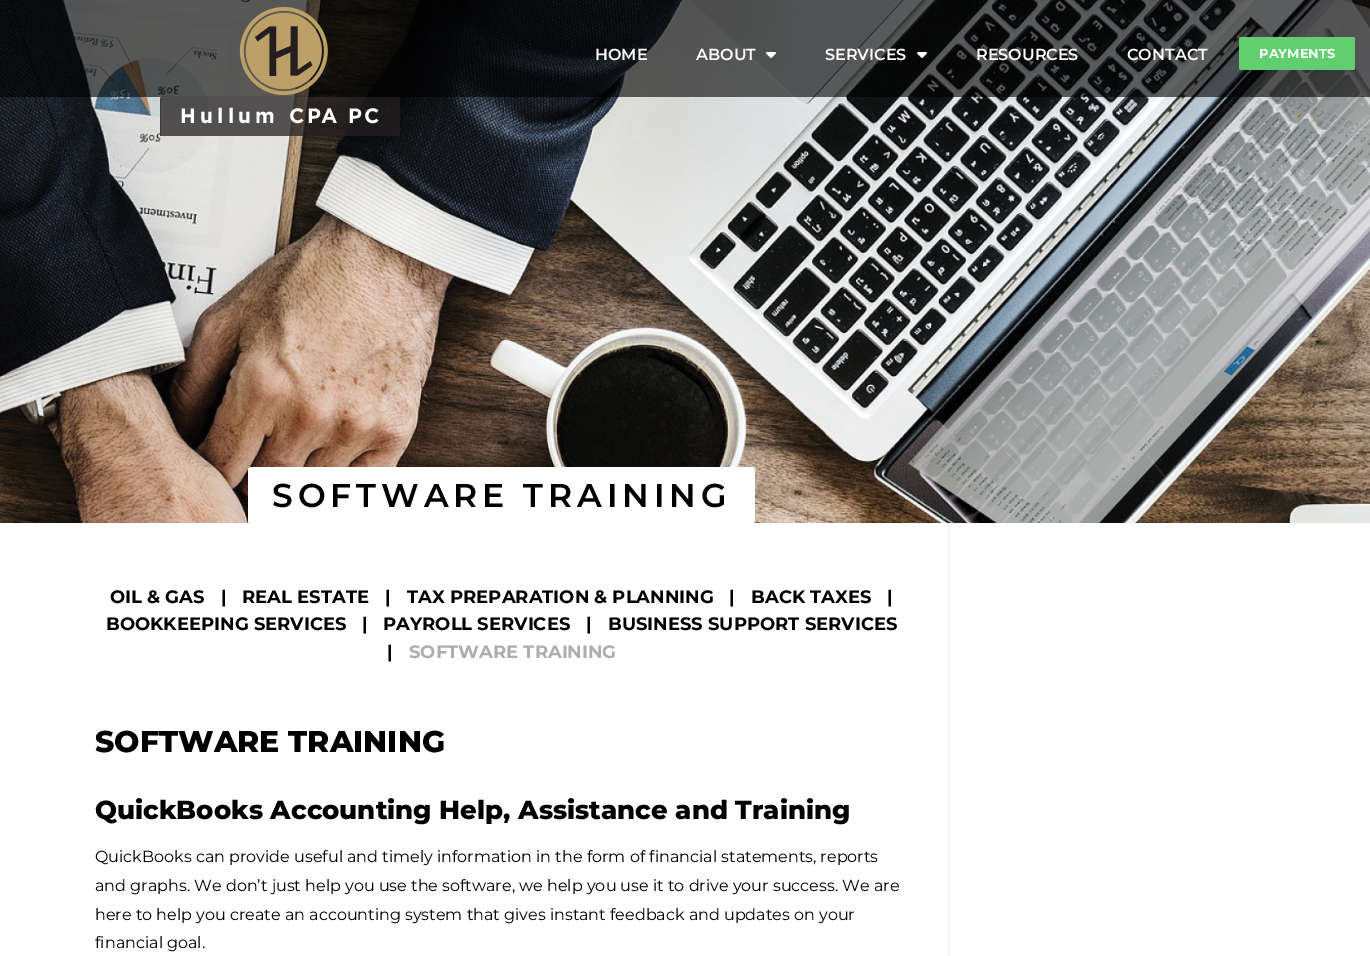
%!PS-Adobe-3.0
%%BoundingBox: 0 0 1370 956
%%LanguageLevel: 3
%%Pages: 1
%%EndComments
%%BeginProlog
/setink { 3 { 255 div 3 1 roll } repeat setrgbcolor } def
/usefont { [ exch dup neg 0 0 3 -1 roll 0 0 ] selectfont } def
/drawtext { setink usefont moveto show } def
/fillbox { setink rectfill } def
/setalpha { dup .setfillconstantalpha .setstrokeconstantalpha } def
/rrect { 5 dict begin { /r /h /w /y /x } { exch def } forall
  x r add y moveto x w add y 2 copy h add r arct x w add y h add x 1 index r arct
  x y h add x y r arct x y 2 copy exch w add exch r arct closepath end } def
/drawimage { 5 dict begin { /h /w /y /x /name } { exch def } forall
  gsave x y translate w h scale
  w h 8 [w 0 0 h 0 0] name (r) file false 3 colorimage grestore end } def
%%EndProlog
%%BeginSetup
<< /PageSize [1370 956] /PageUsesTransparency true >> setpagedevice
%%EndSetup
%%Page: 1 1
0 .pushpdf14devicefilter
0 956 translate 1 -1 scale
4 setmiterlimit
0 0 1370 956 255 255 255 fillbox
948 523 1 433 241 241 241 fillbox
(assets/img1.rgb) 0 0 1370 523 drawimage
0.61 setalpha
0 0 1370 97 0 0 0 fillbox
1 setalpha
(assets/img2.rgb) 160 7 240 129 drawimage
(HOME) 595 60 /Montserrat-SemiBold 16 255 255 255 drawtext
(ABOUT) 696 60 /Montserrat-SemiBold 16 255 255 255 drawtext
(assets/img3.rgb) 766 52 10 6 drawimage
(SERVICES) 825 60 /Montserrat-SemiBold 16 255 255 255 drawtext
(assets/img4.rgb) 917 52 10 6 drawimage
(RESOURCES) 976 60 /Montserrat-SemiBold 16 255 255 255 drawtext
(CONTACT) 1127 60 /Montserrat-SemiBold 16 255 255 255 drawtext
97 206 112 setink
1239 37 116 33 2 rrect fill
(PAYMENTS) 1259 58 /Montserrat-Bold 13 255 255 255 drawtext
248 467 507 57 3 rrect fill
/Montserrat-SemiBold 33 usefont
0 0 0 setink
272 507 moveto 4.9 0 (SOFTWARE TRAINING) ashow
(OIL & GAS) 110 603 /Montserrat-Bold 18 0 0 0 drawtext
(|) 221 603 /Montserrat-Bold 18 0 0 0 drawtext
(REAL ESTATE) 242 603 /Montserrat-Bold 18 0 0 0 drawtext
(|) 385 603 /Montserrat-Bold 18 0 0 0 drawtext
(TAX PREPARATION & PLANNING) 407 603 /Montserrat-Bold 18 0 0 0 drawtext
(|) 729 603 /Montserrat-Bold 18 0 0 0 drawtext
(BACK TAXES) 751 603 /Montserrat-Bold 18 0 0 0 drawtext
(|) 887 603 /Montserrat-Bold 18 0 0 0 drawtext
(BOOKKEEPING SERVICES) 106 630 /Montserrat-Bold 18 0 0 0 drawtext
(|) 362 630 /Montserrat-Bold 18 0 0 0 drawtext
(PAYROLL SERVICES) 383 630 /Montserrat-Bold 18 0 0 0 drawtext
(|) 586 630 /Montserrat-Bold 18 0 0 0 drawtext
(BUSINESS SUPPORT SERVICES) 608 630 /Montserrat-Bold 18 0 0 0 drawtext
(|) 387 658 /Montserrat-Bold 18 0 0 0 drawtext
(SOFTWARE TRAINING) 409 658 /Montserrat-Bold 18 173 173 173 drawtext
(SOFTWARE TRAINING) 95 752 /Montserrat-ExtraBold 30 0 0 0 drawtext
(QuickBooks Accounting Help, Assistance and Training) 95 819 /Montserrat-ExtraBold 26 0 0 0 drawtext
(QuickBooks can provide useful and timely information in the form of financial statements, reports) 95 862 /Montserrat-Regular 16 0 0 0 drawtext
(and graphs. We don’t just help you use the software, we help you use it to drive your success. We are) 95 891 /Montserrat-Regular 16 0 0 0 drawtext
(here to help you create an accounting system that gives instant feedback and updates on your) 95 920 /Montserrat-Regular 16 0 0 0 drawtext
(financial goal.) 95 948 /Montserrat-Regular 16 0 0 0 drawtext
.poppdf14devicefilter showpage
%%EOF
